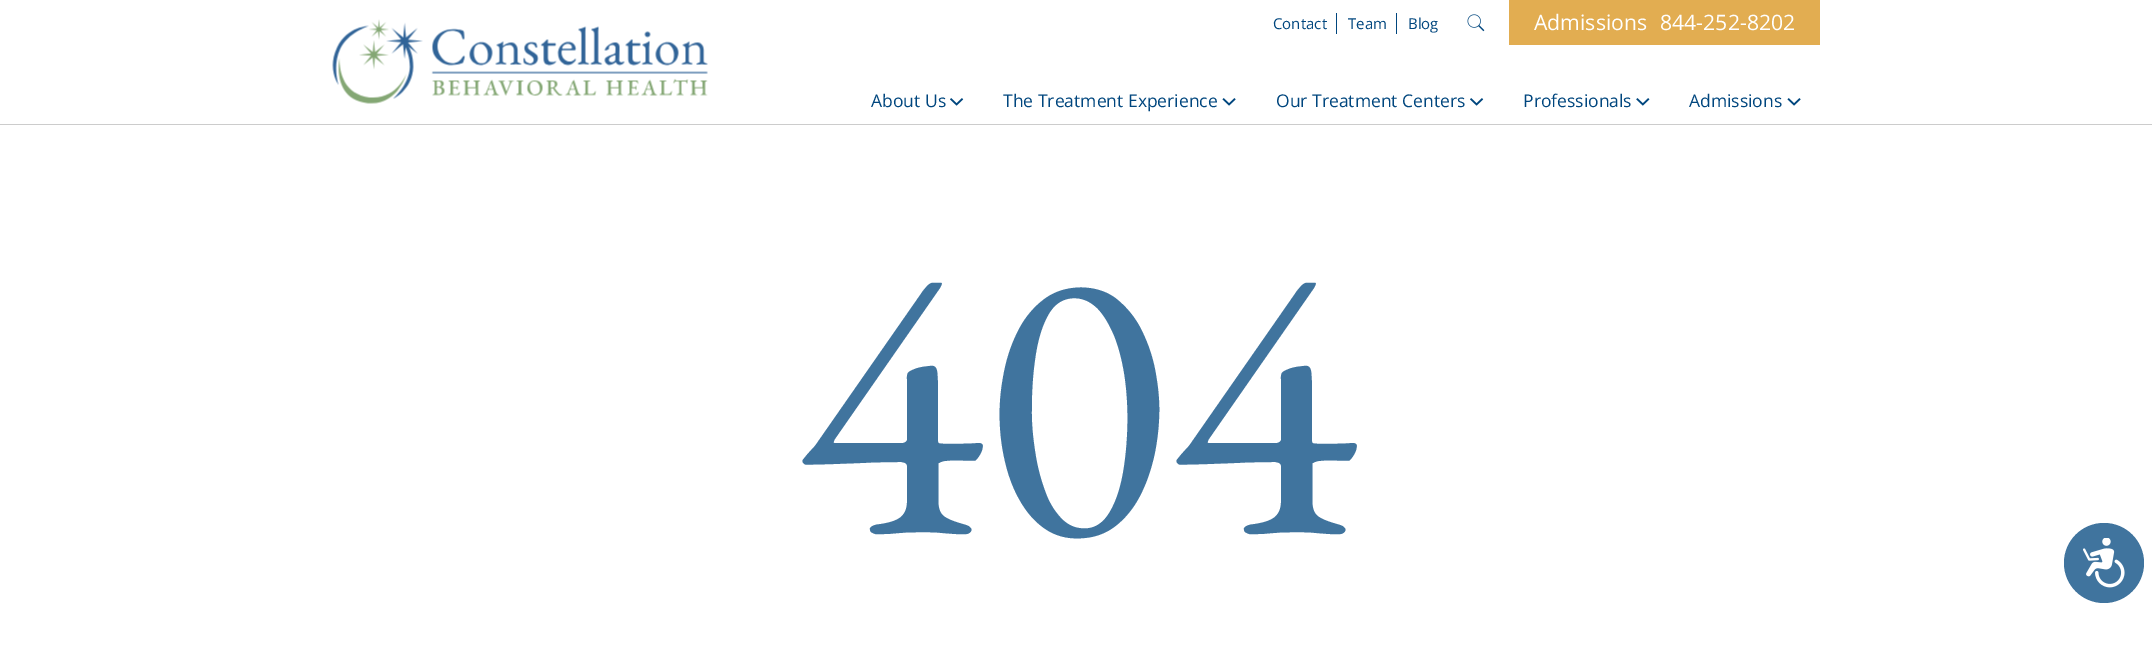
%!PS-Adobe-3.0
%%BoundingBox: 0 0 2152 652
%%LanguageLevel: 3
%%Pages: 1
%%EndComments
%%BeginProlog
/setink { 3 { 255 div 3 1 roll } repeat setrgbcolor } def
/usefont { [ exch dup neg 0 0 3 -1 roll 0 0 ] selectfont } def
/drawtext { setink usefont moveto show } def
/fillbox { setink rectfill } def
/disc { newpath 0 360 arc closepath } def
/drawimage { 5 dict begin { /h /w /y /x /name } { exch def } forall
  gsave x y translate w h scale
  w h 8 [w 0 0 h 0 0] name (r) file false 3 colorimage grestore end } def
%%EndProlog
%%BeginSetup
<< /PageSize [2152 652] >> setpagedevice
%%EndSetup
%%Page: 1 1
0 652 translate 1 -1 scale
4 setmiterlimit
0 0 2152 652 255 255 255 fillbox
0 124 2152 1 204 204 204 fillbox
(Contact) 1273 29 /OpenSans-Regular 15 0 70 126 drawtext
1336 13 1 21 0 70 126 fillbox
(Team) 1348 29 /OpenSans-Regular 15 0 70 126 drawtext
1396 13 1 21 0 70 126 fillbox
(Blog) 1408 29 /OpenSans-Regular 15 0 70 126 drawtext
(assets/img1.rgb) 1467 14 18 18 drawimage
1509 0 311 45 226 173 81 fillbox
(Admissions) 1534 30 /OpenSans-Regular 21.25 255 255 255 drawtext
(844-252-8202) 1660 30 /OpenSans-Regular 21.25 255 255 255 drawtext
(assets/img2.rgb) 332 19 376 85 drawimage
(About Us) 871 107 /OpenSans-Regular 17.5 0 70 126 drawtext
(assets/img3.rgb) 950 98 14 8 drawimage
(The Treatment Experience) 1003 107 /OpenSans-Regular 17.5 0 70 126 drawtext
(assets/img4.rgb) 1222 98 14 8 drawimage
(Our Treatment Centers) 1276 107 /OpenSans-Regular 17.5 0 70 126 drawtext
(assets/img3.rgb) 1470 98 14 8 drawimage
(Professionals) 1523 107 /OpenSans-Regular 17.5 0 70 126 drawtext
(assets/img5.rgb) 1636 98 14 8 drawimage
(Admissions) 1689 107 /OpenSans-Regular 17.5 0 70 126 drawtext
(assets/img4.rgb) 1787 98 14 8 drawimage
(404) 795 533 /EBGaramond-Regular 390 64 116 158 drawtext
2104 563 40 disc fill
(assets/img6.rgb) 2083 538 42 50 drawimage
showpage
%%EOF
